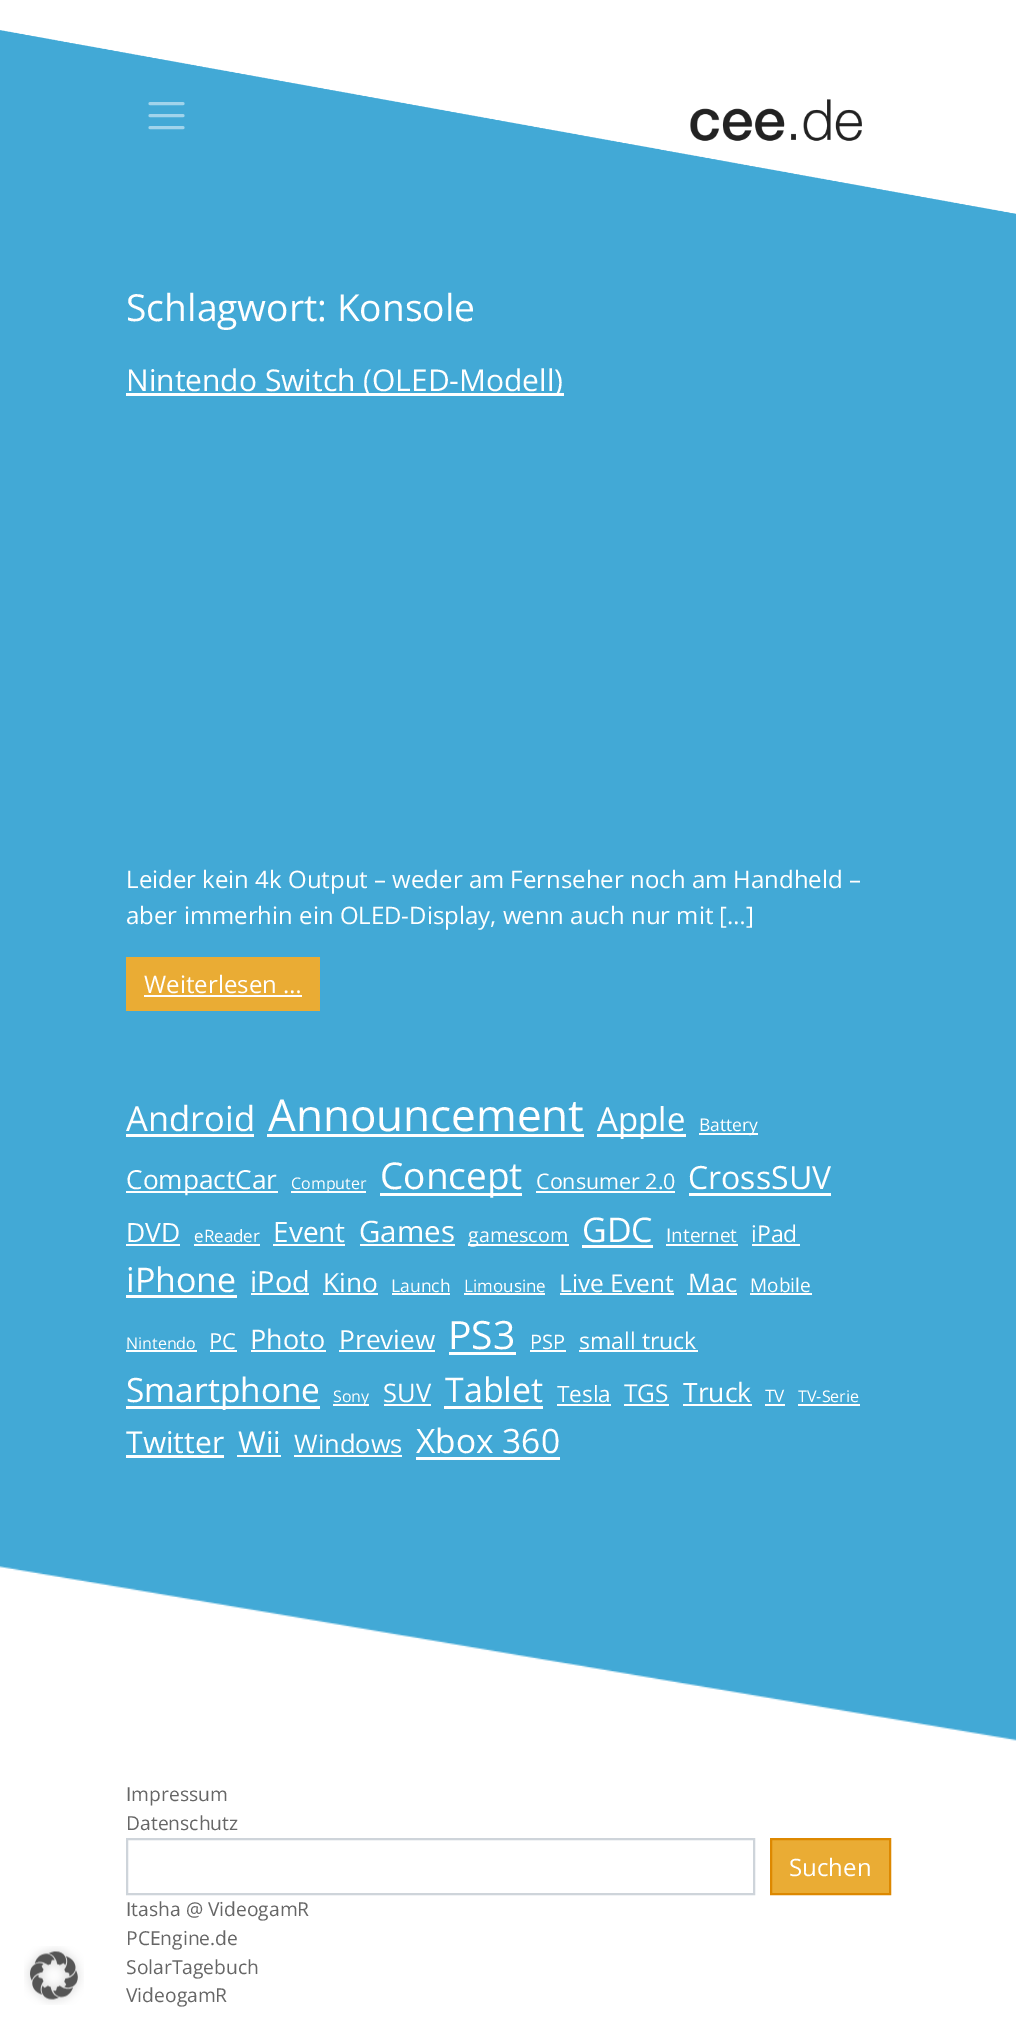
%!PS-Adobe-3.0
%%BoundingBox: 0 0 1016 2029
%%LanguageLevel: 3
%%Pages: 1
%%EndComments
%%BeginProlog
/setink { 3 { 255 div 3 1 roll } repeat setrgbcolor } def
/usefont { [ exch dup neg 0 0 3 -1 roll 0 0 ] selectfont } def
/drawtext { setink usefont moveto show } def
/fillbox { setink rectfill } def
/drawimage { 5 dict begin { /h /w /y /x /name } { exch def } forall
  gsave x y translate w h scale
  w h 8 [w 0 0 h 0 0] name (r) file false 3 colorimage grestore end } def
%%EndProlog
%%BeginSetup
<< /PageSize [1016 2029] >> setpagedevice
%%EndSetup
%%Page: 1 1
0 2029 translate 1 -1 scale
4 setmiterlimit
0 0 1016 2029 66 169 214 fillbox
(assets/img1.rgb) 0 0 1016 214 drawimage
161 212 235 setink
3 setlinewidth
1 setlinecap
150 103.5 moveto 183 103.5 lineto 150 115.5 moveto 183 115.5 lineto 150 127.5 moveto 183 127.5 lineto stroke
(assets/img2.rgb) 690 99 172 42 drawimage
(assets/img4.rgb) 0 1566 1016 463 drawimage
(assets/img3.rgb) 24 1946 60 59 drawimage
(Schlagwort: Konsole) 126 321 /OpenSans-Regular 37.25 255 255 255 drawtext
126 393 438 3 255 255 255 fillbox
(Nintendo Switch \(OLED-Modell\)) 126 391 /OpenSans-Regular 30 255 255 255 drawtext
(Leider kein 4k Output – weder am Fernseher noch am Handheld –) 126 888 /OpenSans-Regular 24 255 255 255 drawtext
(aber immerhin ein OLED-Display, wenn auch nur mit […]) 126 924 /OpenSans-Regular 24 255 255 255 drawtext
126 957 194 54 234 172 52 fillbox
(Weiterlesen …) 144 993 /OpenSans-Regular 24 255 255 255 drawtext
144 995 158 2 255 255 255 fillbox
(Android) 126 1131 /OpenSans-Regular 34.5 255 255 255 drawtext
126 1134 128 3 255 255 255 fillbox
(Announcement) 268 1131 /OpenSans-Regular 44 255 255 255 drawtext
267 1134 317 3 255 255 255 fillbox
597 1134 89 3 255 255 255 fillbox
(Apple) 597 1131 /OpenSans-Regular 33 255 255 255 drawtext
699 1133 59 2 255 255 255 fillbox
(Battery) 699 1131 /OpenSans-Regular 17.5 255 255 255 drawtext
126 1191 152 2 255 255 255 fillbox
(CompactCar) 126 1189 /OpenSans-Regular 26.25 255 255 255 drawtext
291 1191 75 2 255 255 255 fillbox
(Computer) 291 1189 /OpenSans-Regular 16 255 255 255 drawtext
380 1193 142 3 255 255 255 fillbox
(Concept) 380 1189 /OpenSans-Regular 37 255 255 255 drawtext
(Consumer 2.0) 536 1189 /OpenSans-Regular 21.5 255 255 255 drawtext
536 1191 139 2 255 255 255 fillbox
(CrossSUV) 688 1189 /OpenSans-Regular 32 255 255 255 drawtext
689 1193 142 3 255 255 255 fillbox
(DVD) 126 1242 /OpenSans-Regular 26.5 255 255 255 drawtext
126 1244 54 2 255 255 255 fillbox
(eReader) 194 1242 /OpenSans-Regular 17 255 255 255 drawtext
194 1244 66 2 255 255 255 fillbox
(Event) 273 1242 /OpenSans-Regular 28 255 255 255 drawtext
273 1244 72 2 255 255 255 fillbox
(Games) 359 1242 /OpenSans-Regular 29.5 255 255 255 drawtext
360 1244 95 2 255 255 255 fillbox
468 1244 101 2 255 255 255 fillbox
(gamescom) 468 1242 /OpenSans-Regular 19.75 255 255 255 drawtext
(GDC) 582 1242 /OpenSans-Regular 34 255 255 255 drawtext
582 1245 71 3 255 255 255 fillbox
(Internet) 666 1242 /OpenSans-Regular 19 255 255 255 drawtext
666 1244 72 2 255 255 255 fillbox
(iPad) 751 1242 /OpenSans-Regular 23 255 255 255 drawtext
752 1244 48 2 255 255 255 fillbox
(iPhone) 126 1292 /OpenSans-Regular 34 255 255 255 drawtext
126 1295 111 3 255 255 255 fillbox
(iPod) 250 1292 /OpenSans-Regular 29 255 255 255 drawtext
251 1293 58 2 255 255 255 fillbox
(Kino) 323 1292 /OpenSans-Regular 26.25 255 255 255 drawtext
323 1293 55 2 255 255 255 fillbox
(Launch) 391 1292 /OpenSans-Regular 17.5 255 255 255 drawtext
392 1293 58 2 255 255 255 fillbox
(Limousine) 464 1292 /OpenSans-Regular 17 255 255 255 drawtext
464 1293 81 2 255 255 255 fillbox
(Live Event) 559 1292 /OpenSans-Regular 24.5 255 255 255 drawtext
560 1293 114 2 255 255 255 fillbox
(Mac) 688 1292 /OpenSans-Regular 25.5 255 255 255 drawtext
687 1293 50 2 255 255 255 fillbox
(Mobile) 750 1292 /OpenSans-Regular 19 255 255 255 drawtext
750 1293 62 2 255 255 255 fillbox
(Nintendo) 126 1349 /OpenSans-Regular 16 255 255 255 drawtext
126 1350 71 2 255 255 255 fillbox
(PC) 209 1349 /OpenSans-Regular 22 255 255 255 drawtext
210 1350 27 2 255 255 255 fillbox
(Photo) 250 1349 /OpenSans-Regular 27 255 255 255 drawtext
251 1350 75 2 255 255 255 fillbox
(Preview) 339 1349 /OpenSans-Regular 26.25 255 255 255 drawtext
339 1350 96 2 255 255 255 fillbox
(PS3) 448 1349 /OpenSans-Regular 39 255 255 255 drawtext
449 1352 67 3 255 255 255 fillbox
(PSP) 530 1349 /OpenSans-Regular 20 255 255 255 drawtext
530 1350 36 2 255 255 255 fillbox
(small truck) 579 1349 /OpenSans-Regular 23 255 255 255 drawtext
579 1350 119 2 255 255 255 fillbox
126 1406 194 3 255 255 255 fillbox
(Smartphone) 126 1402 /OpenSans-Regular 33.5 255 255 255 drawtext
333 1404 36 2 255 255 255 fillbox
(Sony) 333 1402 /OpenSans-Regular 16 255 255 255 drawtext
(SUV) 383 1402 /OpenSans-Regular 25.5 255 255 255 drawtext
384 1404 47 2 255 255 255 fillbox
(Tablet) 445 1402 /OpenSans-Regular 34 255 255 255 drawtext
444 1406 99 3 255 255 255 fillbox
(Tesla) 557 1402 /OpenSans-Regular 22.5 255 255 255 drawtext
557 1404 54 2 255 255 255 fillbox
(TGS) 624 1402 /OpenSans-Regular 24.5 255 255 255 drawtext
624 1404 45 2 255 255 255 fillbox
(Truck) 683 1402 /OpenSans-Regular 26.5 255 255 255 drawtext
683 1404 69 2 255 255 255 fillbox
(TV) 765 1402 /OpenSans-Regular 17 255 255 255 drawtext
765 1404 20 2 255 255 255 fillbox
(TV-Serie) 798 1402 /OpenSans-Regular 16 255 255 255 drawtext
798 1404 62 2 255 255 255 fillbox
(Twitter) 126 1453 /OpenSans-Regular 30 255 255 255 drawtext
126 1455 98 3 255 255 255 fillbox
(Wii) 238 1453 /OpenSans-Regular 30 255 255 255 drawtext
237 1455 44 2 255 255 255 fillbox
(Windows) 294 1453 /OpenSans-Regular 25.5 255 255 255 drawtext
294 1455 108 2 255 255 255 fillbox
(Xbox 360) 416 1453 /OpenSans-Regular 33.5 255 255 255 drawtext
416 1457 144 3 255 255 255 fillbox
(Impressum) 126 1801 /OpenSans-Regular 19.25 102 102 102 drawtext
(Datenschutz) 126 1830 /OpenSans-Regular 19.25 102 102 102 drawtext
206 212 218 setink
2 setlinewidth
0 setlinecap
127 1839 627 55 rectstroke
234 172 52 setink
771 1839 moveto 890 1839 lineto 890 1894 lineto 771 1894 lineto closepath gsave fill grestore
221 136 0 setink
stroke
(Suchen) 789 1876 /OpenSans-Regular 24 255 255 255 drawtext
(Itasha @ VideogamR) 126 1916 /OpenSans-Regular 19.25 102 102 102 drawtext
(PCEngine.de) 126 1945 /OpenSans-Regular 19.25 102 102 102 drawtext
(SolarTagebuch) 126 1974 /OpenSans-Regular 19.25 102 102 102 drawtext
(VideogamR) 126 2002 /OpenSans-Regular 19.25 102 102 102 drawtext
showpage
%%EOF
